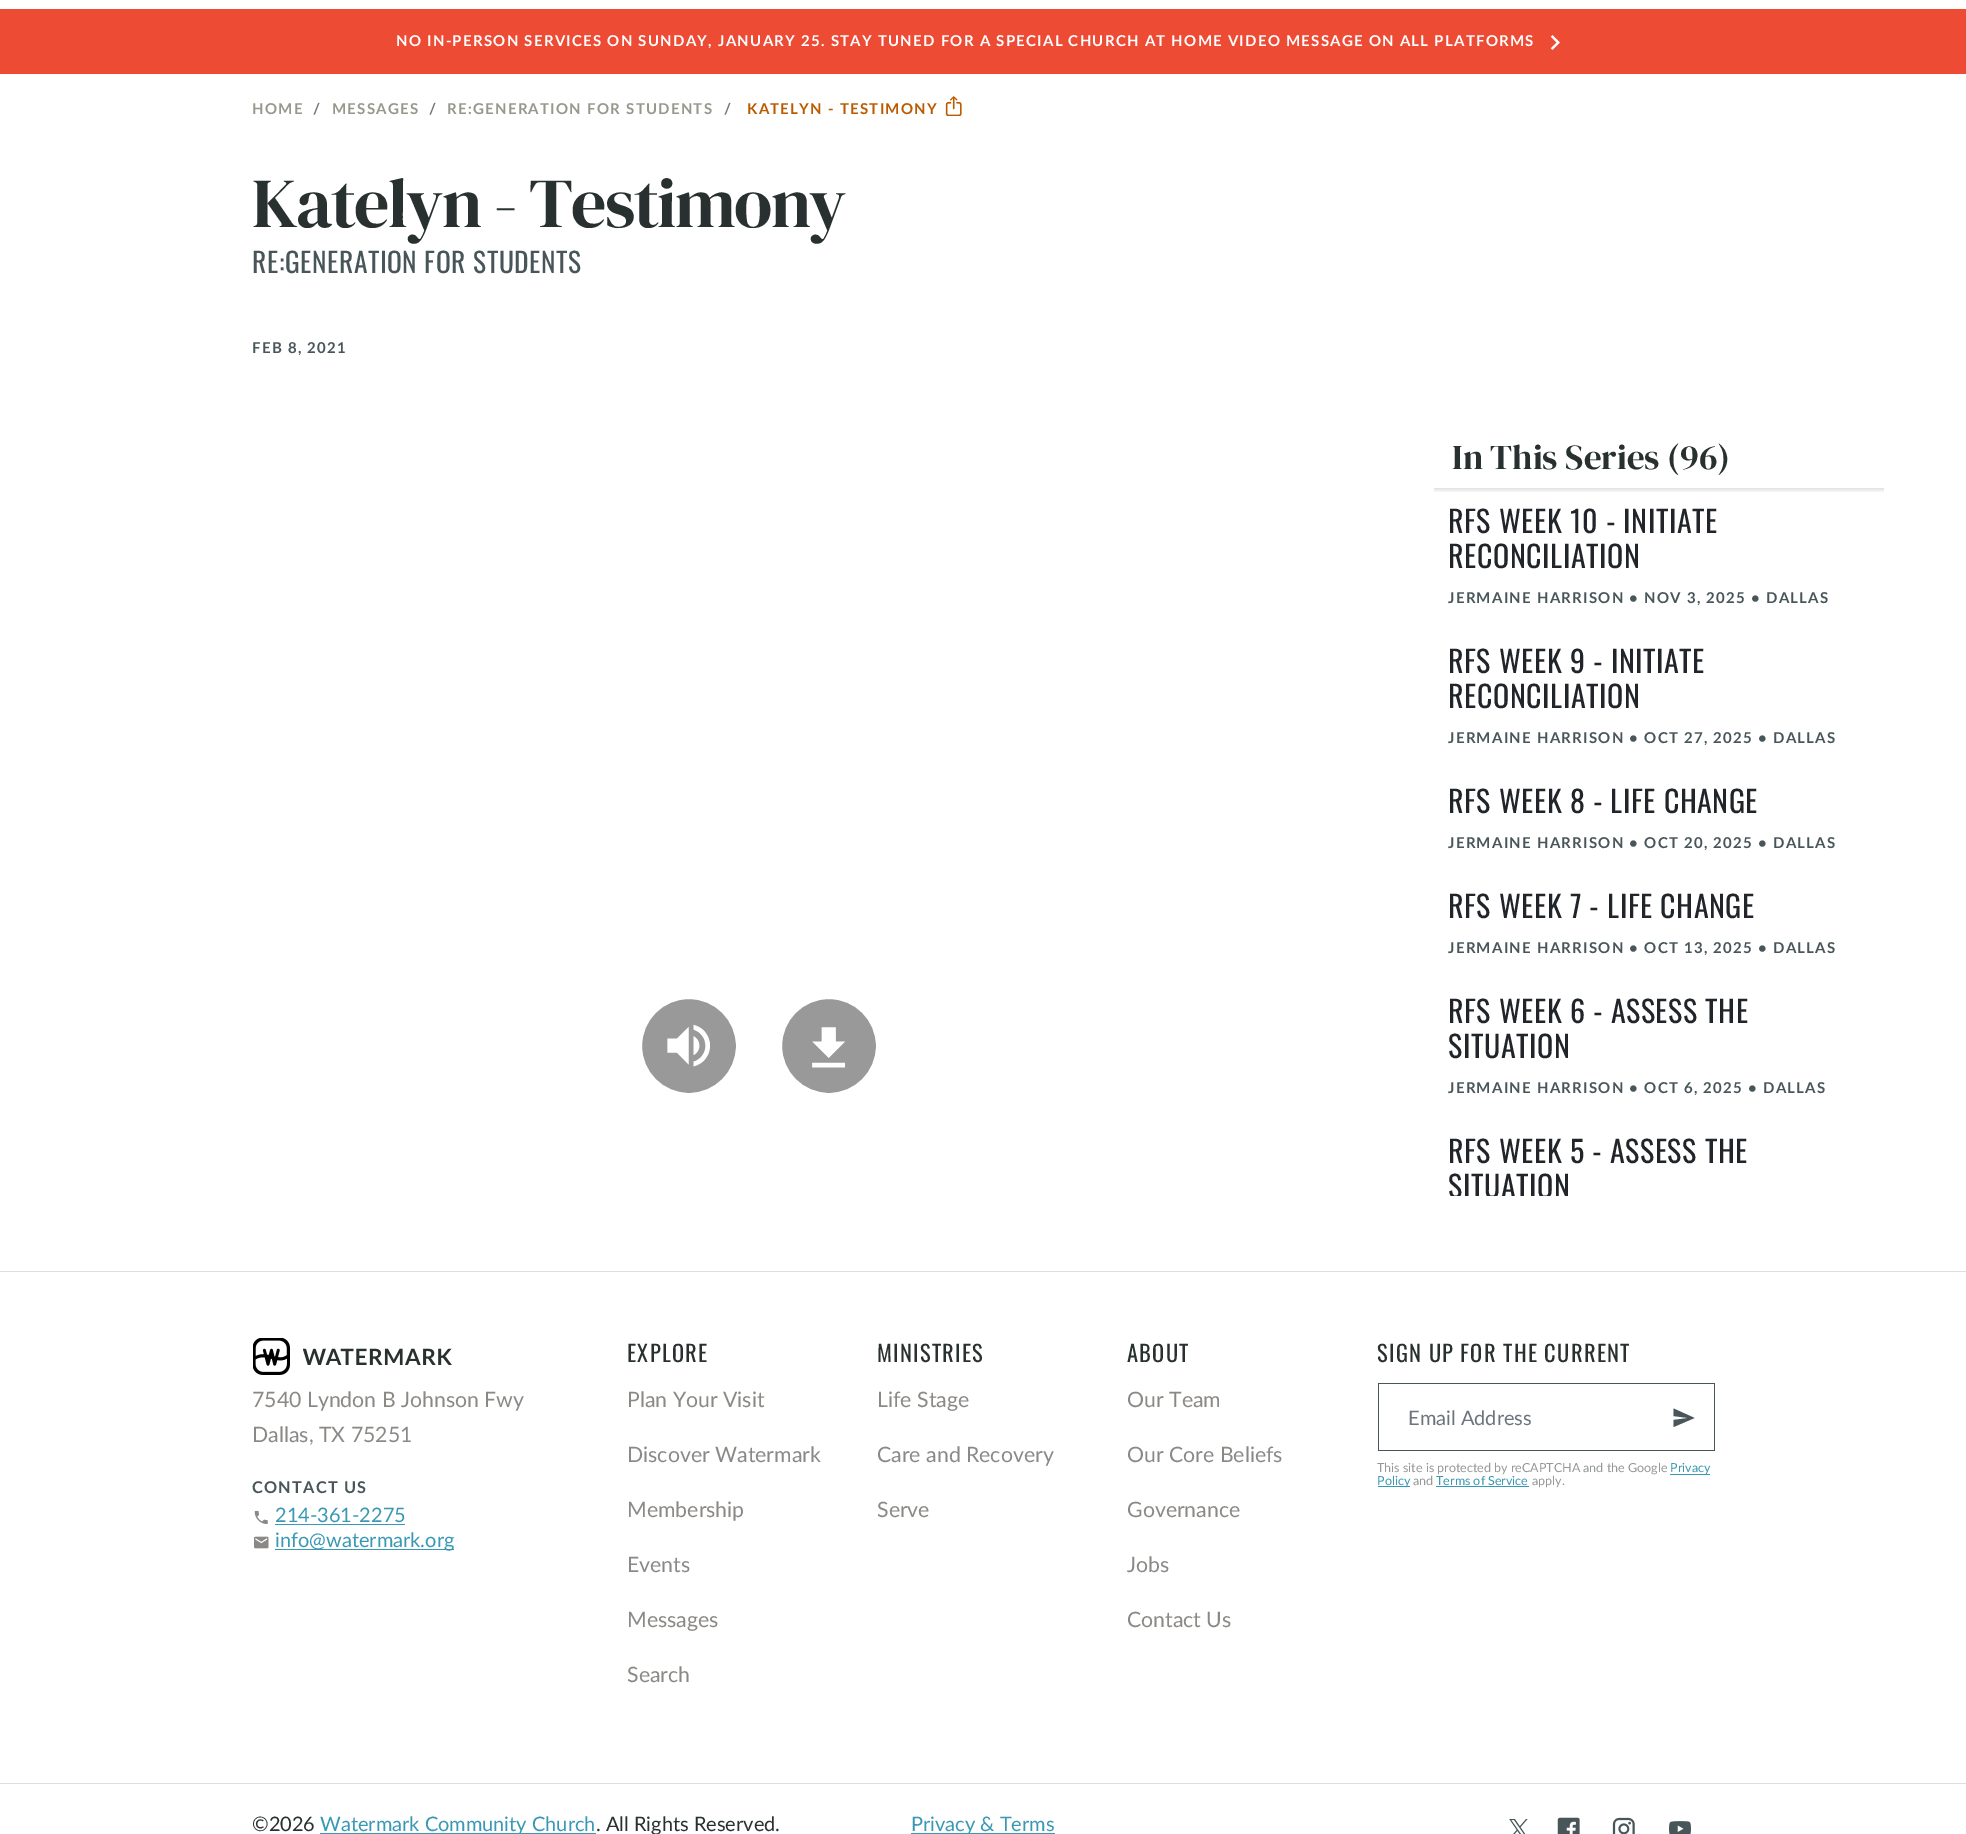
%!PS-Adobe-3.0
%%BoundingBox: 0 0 1966 1834
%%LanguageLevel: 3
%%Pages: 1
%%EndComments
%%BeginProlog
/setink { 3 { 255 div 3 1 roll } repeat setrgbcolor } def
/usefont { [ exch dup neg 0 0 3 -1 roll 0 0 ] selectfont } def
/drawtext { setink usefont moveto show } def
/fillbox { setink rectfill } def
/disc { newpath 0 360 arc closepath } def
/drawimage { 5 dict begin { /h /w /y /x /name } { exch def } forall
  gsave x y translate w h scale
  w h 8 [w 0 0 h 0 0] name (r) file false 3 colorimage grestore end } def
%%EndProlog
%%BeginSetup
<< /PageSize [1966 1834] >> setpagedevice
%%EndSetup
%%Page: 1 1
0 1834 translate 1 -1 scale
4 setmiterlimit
0 0 1966 1834 255 255 255 fillbox
0 9 1966 65 238 75 53 fillbox
/Lato-Bold 15 usefont
255 255 255 setink
396 46 moveto 1.25 0 (NO IN-PERSON SERVICES ON SUNDAY, JANUARY 25. STAY TUNED FOR A SPECIAL CHURCH AT HOME VIDEO MESSAGE ON ALL PLATFORMS) ashow
(assets/img1.rgb) 1550 35 10 15 drawimage
148 153 140 setink
252 114 moveto 1.25 0 (HOME) ashow
108 117 125 setink
313 114 moveto 1.25 0 (/) ashow
148 153 140 setink
332 114 moveto 1.25 0 (MESSAGES) ashow
108 117 125 setink
429 114 moveto 1.25 0 (/) ashow
148 153 140 setink
447 114 moveto 1.25 0 (RE:GENERATION FOR STUDENTS) ashow
108 117 125 setink
724 114 moveto 1.25 0 (/) ashow
188 90 0 setink
747 114 moveto 1.25 0 (KATELYN - TESTIMONY) ashow
(assets/img2.rgb) 945 96 17 20 drawimage
/DMSerifDisplay-Regular 70 usefont
40 49 47 setink
252 227 moveto -1.75 0 (Katelyn - Testimony) ashow
/Oswald-Regular 27.5 usefont
72 86 90 setink
252 273 moveto 0.6 0 (RE:GENERATION FOR STUDENTS) ashow
/Lato-Bold 15 usefont
252 353 moveto 1.25 0 (FEB 8, 2021) ashow
153 153 153 setink
689 1046 48.5 disc gsave fill grestore
255 255 255 setink
3 setlinewidth
stroke
(assets/img3.rgb) 667 1024 43 43 drawimage
153 153 153 setink
829 1046 48.5 disc gsave fill grestore
255 255 255 setink
stroke
(assets/img4.rgb) 812 1027 33 41 drawimage
(In This Series \(96\)) 1452 469 /DMSerifDisplay-Regular 35 40 49 47 drawtext
gsave 1434 488 moveto 1884 488 lineto 1884 493 lineto 1434 493 lineto closepath clip newpath
<< /ShadingType 2 /ColorSpace /DeviceRGB /Coords [1659 488 1659 493] /Extend [true true] /Function << /FunctionType 2 /Domain [0 1] /C0 [0.878 0.878 0.878] /C1 [1 1 1] /N 1 >> >> shfill grestore
/Oswald-Regular 30 usefont
33 37 41 setink
1448 533 moveto 0.6 0 (RFS WEEK 10 - INITIATE) ashow
1448 568 moveto 0.6 0 (RECONCILIATION) ashow
/Lato-Bold 15 usefont
72 86 90 setink
1448 603 moveto 1.25 0 (JERMAINE HARRISON • NOV 3, 2025 • DALLAS) ashow
/Oswald-Regular 30 usefont
33 37 41 setink
1448 673 moveto 0.6 0 (RFS WEEK 9 - INITIATE) ashow
1448 708 moveto 0.6 0 (RECONCILIATION) ashow
/Lato-Bold 15 usefont
72 86 90 setink
1448 743 moveto 1.25 0 (JERMAINE HARRISON • OCT 27, 2025 • DALLAS) ashow
/Oswald-Regular 30 usefont
33 37 41 setink
1448 813 moveto 0.6 0 (RFS WEEK 8 - LIFE CHANGE) ashow
/Lato-Bold 15 usefont
72 86 90 setink
1448 848 moveto 1.25 0 (JERMAINE HARRISON • OCT 20, 2025 • DALLAS) ashow
/Oswald-Regular 30 usefont
33 37 41 setink
1448 918 moveto 0.6 0 (RFS WEEK 7 - LIFE CHANGE) ashow
/Lato-Bold 15 usefont
72 86 90 setink
1448 953 moveto 1.25 0 (JERMAINE HARRISON • OCT 13, 2025 • DALLAS) ashow
/Oswald-Regular 30 usefont
33 37 41 setink
1448 1023 moveto 0.6 0 (RFS WEEK 6 - ASSESS THE) ashow
1448 1058 moveto 0.6 0 (SITUATION) ashow
/Lato-Bold 15 usefont
72 86 90 setink
1448 1093 moveto 1.25 0 (JERMAINE HARRISON • OCT 6, 2025 • DALLAS) ashow
/Oswald-Regular 30 usefont
33 37 41 setink
1448 1163 moveto 0.6 0 (RFS WEEK 5 - ASSESS THE) ashow
gsave
1434 488 450 708 rectclip
1448 1198 moveto 0.6 0 (SITUATION) ashow
grestore
0 1271 1966 1 223 222 218 fillbox
(assets/img5.rgb) 253 1338 37 37 drawimage
(assets/img6.rgb) 303 1348 149 17 drawimage
(7540 Lyndon B Johnson Fwy) 252 1407 /Lato-Regular 21.25 139 137 134 drawtext
(Dallas, TX 75251) 252 1442 /Lato-Regular 21.25 139 137 134 drawtext
/Lato-Bold 16.25 usefont
72 86 90 setink
252 1493 moveto 1.25 0 (CONTACT US) ashow
(assets/img7.rgb) 254 1510 14 14 drawimage
(214-361-2275) 275 1522 /Lato-Regular 20 57 152 179 drawtext
275 1524 130 1 57 152 179 fillbox
(assets/img8.rgb) 254 1536 15 13 drawimage
275 1549 179 1 57 152 179 fillbox
(info@watermark.org) 275 1547 /Lato-Regular 20 57 152 179 drawtext
/Oswald-Regular 22.5 usefont
40 49 47 setink
627 1362 moveto 1.25 0 (EXPLORE) ashow
(Plan Your Visit) 627 1407 /Lato-Regular 21.25 139 137 134 drawtext
(Discover Watermark) 627 1462 /Lato-Regular 21.25 139 137 134 drawtext
(Membership) 627 1517 /Lato-Regular 21.25 139 137 134 drawtext
(Events) 627 1572 /Lato-Regular 21.25 139 137 134 drawtext
(Messages) 627 1627 /Lato-Regular 21.25 139 137 134 drawtext
(Search) 627 1682 /Lato-Regular 21.25 139 137 134 drawtext
/Oswald-Regular 22.5 usefont
40 49 47 setink
877 1362 moveto 1.25 0 (MINISTRIES) ashow
(Life Stage) 877 1407 /Lato-Regular 21.25 139 137 134 drawtext
(Care and Recovery) 877 1462 /Lato-Regular 21.25 139 137 134 drawtext
(Serve) 877 1517 /Lato-Regular 21.25 139 137 134 drawtext
/Oswald-Regular 22.5 usefont
40 49 47 setink
1127 1362 moveto 1.25 0 (ABOUT) ashow
(Our Team) 1127 1407 /Lato-Regular 21.25 139 137 134 drawtext
(Our Core Beliefs) 1127 1462 /Lato-Regular 21.25 139 137 134 drawtext
(Governance) 1127 1517 /Lato-Regular 21.25 139 137 134 drawtext
(Jobs) 1127 1572 /Lato-Regular 21.25 139 137 134 drawtext
(Contact Us) 1127 1627 /Lato-Regular 21.25 139 137 134 drawtext
/Oswald-Regular 22.5 usefont
40 49 47 setink
1377 1362 moveto 1.25 0 (SIGN UP FOR THE CURRENT) ashow
1378 1383 337 1 72 86 90 fillbox
1378 1450 275 1 72 86 90 fillbox
1378 1383 1 68 72 86 90 fillbox
(Email Address) 1408 1425 /Lato-Regular 20 108 117 125 drawtext
1714 1383 1 68 72 86 90 fillbox
1653 1450 62 1 72 86 90 fillbox
1673.5 1427 moveto 1673.5 1420 lineto 1688.5 1418 lineto 1673.5 1416 lineto 1673.5 1408.5 lineto 1694.5 1418 lineto closepath fill
(This site is protected by reCAPTCHA and the Google) 1377 1472 /Lato-Regular 12.5 148 152 151 drawtext
1670 1474 40 1 57 152 179 fillbox
(Privacy) 1670 1472 /Lato-Regular 12.5 57 152 179 drawtext
1378 1486 32 1 57 152 179 fillbox
(Policy) 1377 1485 /Lato-Regular 12.5 57 152 179 drawtext
(and) 1413 1485 /Lato-Regular 12.5 148 152 151 drawtext
(Terms of Service) 1436 1485 /Lato-Regular 12.5 57 152 179 drawtext
1436 1486 93 1 57 152 179 fillbox
(apply.) 1532 1485 /Lato-Regular 12.5 148 152 151 drawtext
0 1783 1966 1 223 222 218 fillbox
(©2026) 252 1831 /Lato-Regular 20 40 49 47 drawtext
320 1833 276 1 57 152 179 fillbox
(Watermark Community Church) 320 1831 /Lato-Regular 20 57 152 179 drawtext
(. All Rights Reserved.) 596 1831 /Lato-Regular 20 40 49 47 drawtext
911 1833 144 1 57 152 179 fillbox
(Privacy & Terms) 911 1831 /Lato-Regular 20 57 152 179 drawtext
(assets/img9.rgb) 1509 1819 19 15 drawimage
(assets/img10.rgb) 1557 1817 23 17 drawimage
(assets/img11.rgb) 1612 1817 23 17 drawimage
(assets/img12.rgb) 1669 1821 22 13 drawimage
showpage
%%EOF
